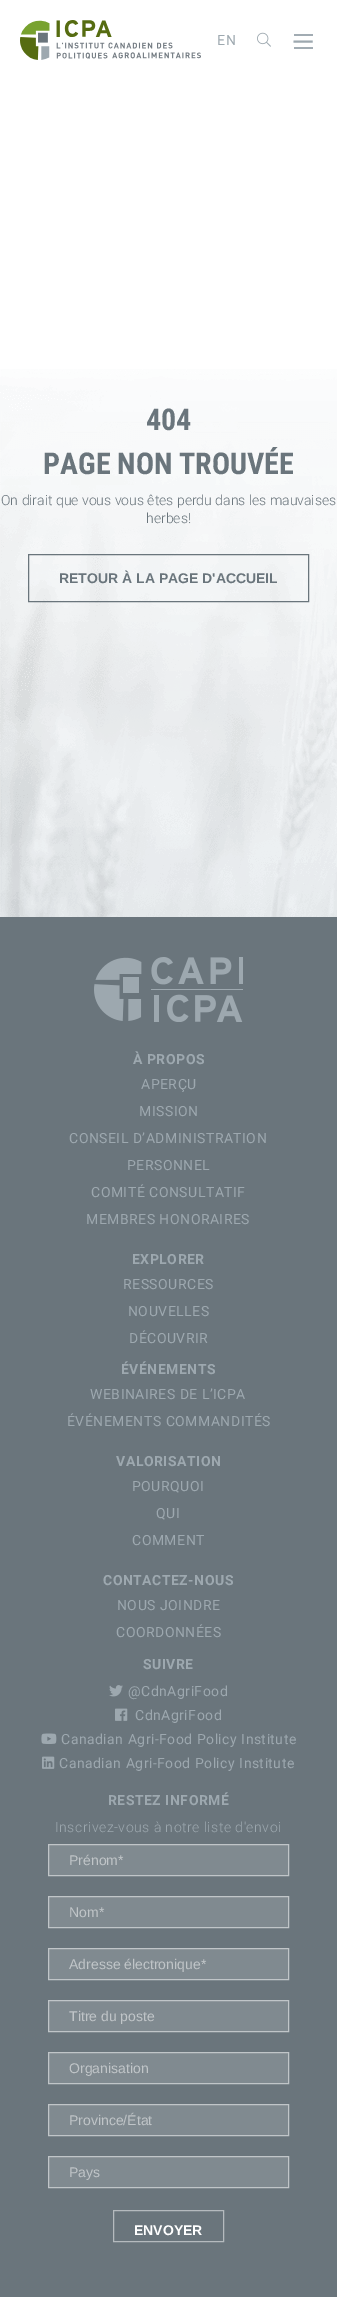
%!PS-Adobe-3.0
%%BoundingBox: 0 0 337 2297
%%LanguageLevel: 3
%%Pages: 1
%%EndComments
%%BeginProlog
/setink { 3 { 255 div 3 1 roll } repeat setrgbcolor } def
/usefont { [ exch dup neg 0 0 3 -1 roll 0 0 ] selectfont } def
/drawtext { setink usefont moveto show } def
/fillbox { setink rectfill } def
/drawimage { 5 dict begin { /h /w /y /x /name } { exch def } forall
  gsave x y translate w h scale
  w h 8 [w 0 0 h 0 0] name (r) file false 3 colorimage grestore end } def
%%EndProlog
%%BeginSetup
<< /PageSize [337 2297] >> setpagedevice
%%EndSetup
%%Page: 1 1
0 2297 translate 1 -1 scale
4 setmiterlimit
0 0 337 2297 255 255 255 fillbox
(assets/img1.rgb) 20 20 181 40 drawimage
/Roboto-Regular 14 usefont
157 168 175 setink
217 45 moveto 1 0 (EN) ashow
(assets/img2.rgb) 257 32 14 15 drawimage
294 34 19 2 162 172 179 fillbox
157 168 175 setink
1.9 setlinewidth
2 setlinecap
[0.75 0.75] 0 setdash
294.5 41.5 moveto 312.5 41.5 lineto stroke
294 47 19 2 162 172 179 fillbox
(assets/img3.rgb) 0 369 337 548 drawimage
(404) 146 430 /RobotoCondensed-Bold 30 106 117 124 drawtext
(PAGE NON TROUVÉE) 43 474 /RobotoCondensed-Bold 30 106 117 124 drawtext
(On dirait que vous vous êtes perdu dans les mauvaises) 1 505 /Roboto-Light 14 106 117 124 drawtext
(herbes!) 146 523 /Roboto-Light 14 106 117 124 drawtext
1 setlinewidth
0 setlinecap
[] 0 setdash
28.5 554.5 280 47 rectstroke
(RETOUR À LA PAGE D'ACCUEIL) 59 583 /LiberationSans-Bold 14 106 117 124 drawtext
0 917 337 1380 106 117 124 fillbox
(assets/img4.rgb) 94 957 149 65 drawimage
/Roboto-Bold 14 usefont
157 168 175 setink
133 1064 moveto 0.5 0 (À PROPOS) ashow
/Roboto-Regular 14 usefont
141 1089 moveto 0.5 0 (APERÇU) ashow
139 1116 moveto 0.5 0 (MISSION) ashow
69 1143 moveto 0.5 0 (CONSEIL D’ADMINISTRATION) ashow
127 1170 moveto 0.5 0 (PERSONNEL) ashow
91 1197 moveto 0.5 0 (COMITÉ CONSULTATIF) ashow
86 1224 moveto 0.5 0 (MEMBRES HONORAIRES) ashow
/Roboto-Bold 14 usefont
132 1264 moveto 0.5 0 (EXPLORER) ashow
/Roboto-Regular 14 usefont
123 1289 moveto 0.5 0 (RESSOURCES) ashow
128 1316 moveto 0.5 0 (NOUVELLES) ashow
129 1343 moveto 0.5 0 (DÉCOUVRIR) ashow
/Roboto-Bold 14 usefont
121 1374 moveto 0.5 0 (ÉVÉNEMENTS) ashow
/Roboto-Regular 14 usefont
90 1399 moveto 0.5 0 (WEBINAIRES DE L’ICPA) ashow
67 1426 moveto 0.5 0 (ÉVÉNEMENTS COMMANDITÉS) ashow
/Roboto-Bold 14 usefont
116 1466 moveto 0.5 0 (VALORISATION) ashow
/Roboto-Regular 14 usefont
132 1491 moveto 0.5 0 (POURQUOI) ashow
156 1518 moveto 0.5 0 (QUI) ashow
132 1545 moveto 0.5 0 (COMMENT) ashow
/Roboto-Bold 14 usefont
103 1585 moveto 0.5 0 (CONTACTEZ-NOUS) ashow
/Roboto-Regular 14 usefont
117 1610 moveto 0.5 0 (NOUS JOINDRE) ashow
116 1637 moveto 0.5 0 (COORDONNÉES) ashow
/Roboto-Bold 14 usefont
143 1669 moveto 0.5 0 (SUIVRE) ashow
(assets/img5.rgb) 109 1685 14 12 drawimage
/Roboto-Regular 14 usefont
128 1696 moveto 0.5 0 (@CdnAgriFood) ashow
(assets/img6.rgb) 115 1708 13 13 drawimage
135 1720 moveto 0.5 0 (CdnAgriFood) ashow
(assets/img7.rgb) 41 1733 16 11 drawimage
61 1744 moveto 0.5 0 (Canadian Agri-Food Policy Institute) ashow
(assets/img8.rgb) 42 1756 13 13 drawimage
59 1768 moveto 0.5 0 (Canadian Agri-Food Policy Institute) ashow
/Roboto-Bold 14 usefont
108 1805 moveto 0.5 0 (RESTEZ INFORMÉ) ashow
/Roboto-Light 14 usefont
55 1832 moveto 0.5 0 (Inscrivez-vous à notre liste d'envoi) ashow
128 138 144 setink
48.5 1844.5 moveto 288.5 1844.5 lineto 288.5 1875.5 lineto 48.5 1875.5 lineto closepath gsave fill grestore
192 197 200 setink
stroke
(Prénom*) 69 1865 /LiberationSans-Regular 14 192 197 200 drawtext
128 138 144 setink
48.5 1896.5 moveto 288.5 1896.5 lineto 288.5 1927.5 lineto 48.5 1927.5 lineto closepath gsave fill grestore
192 197 200 setink
stroke
(Nom*) 69 1917 /LiberationSans-Regular 14 192 197 200 drawtext
128 138 144 setink
48.5 1948.5 moveto 288.5 1948.5 lineto 288.5 1979.5 lineto 48.5 1979.5 lineto closepath gsave fill grestore
192 197 200 setink
stroke
(Adresse électronique*) 69 1969 /LiberationSans-Regular 14 192 197 200 drawtext
128 138 144 setink
48.5 2000.5 moveto 288.5 2000.5 lineto 288.5 2031.5 lineto 48.5 2031.5 lineto closepath gsave fill grestore
192 197 200 setink
stroke
(Titre du poste) 69 2021 /LiberationSans-Regular 14 192 197 200 drawtext
128 138 144 setink
48.5 2052.5 moveto 288.5 2052.5 lineto 288.5 2083.5 lineto 48.5 2083.5 lineto closepath gsave fill grestore
192 197 200 setink
stroke
(Organisation) 69 2073 /LiberationSans-Regular 14 192 197 200 drawtext
128 138 144 setink
48.5 2104.5 moveto 288.5 2104.5 lineto 288.5 2135.5 lineto 48.5 2135.5 lineto closepath gsave fill grestore
192 197 200 setink
stroke
(Province/État) 69 2125 /LiberationSans-Regular 14 192 197 200 drawtext
128 138 144 setink
48.5 2156.5 moveto 288.5 2156.5 lineto 288.5 2187.5 lineto 48.5 2187.5 lineto closepath gsave fill grestore
192 197 200 setink
stroke
(Pays) 69 2177 /LiberationSans-Regular 14 192 197 200 drawtext
181 186 190 setink
113.5 2210.5 110 31 rectstroke
(ENVOYER) 134 2235 /LiberationSans-Bold 14 255 255 255 drawtext
showpage
%%EOF
